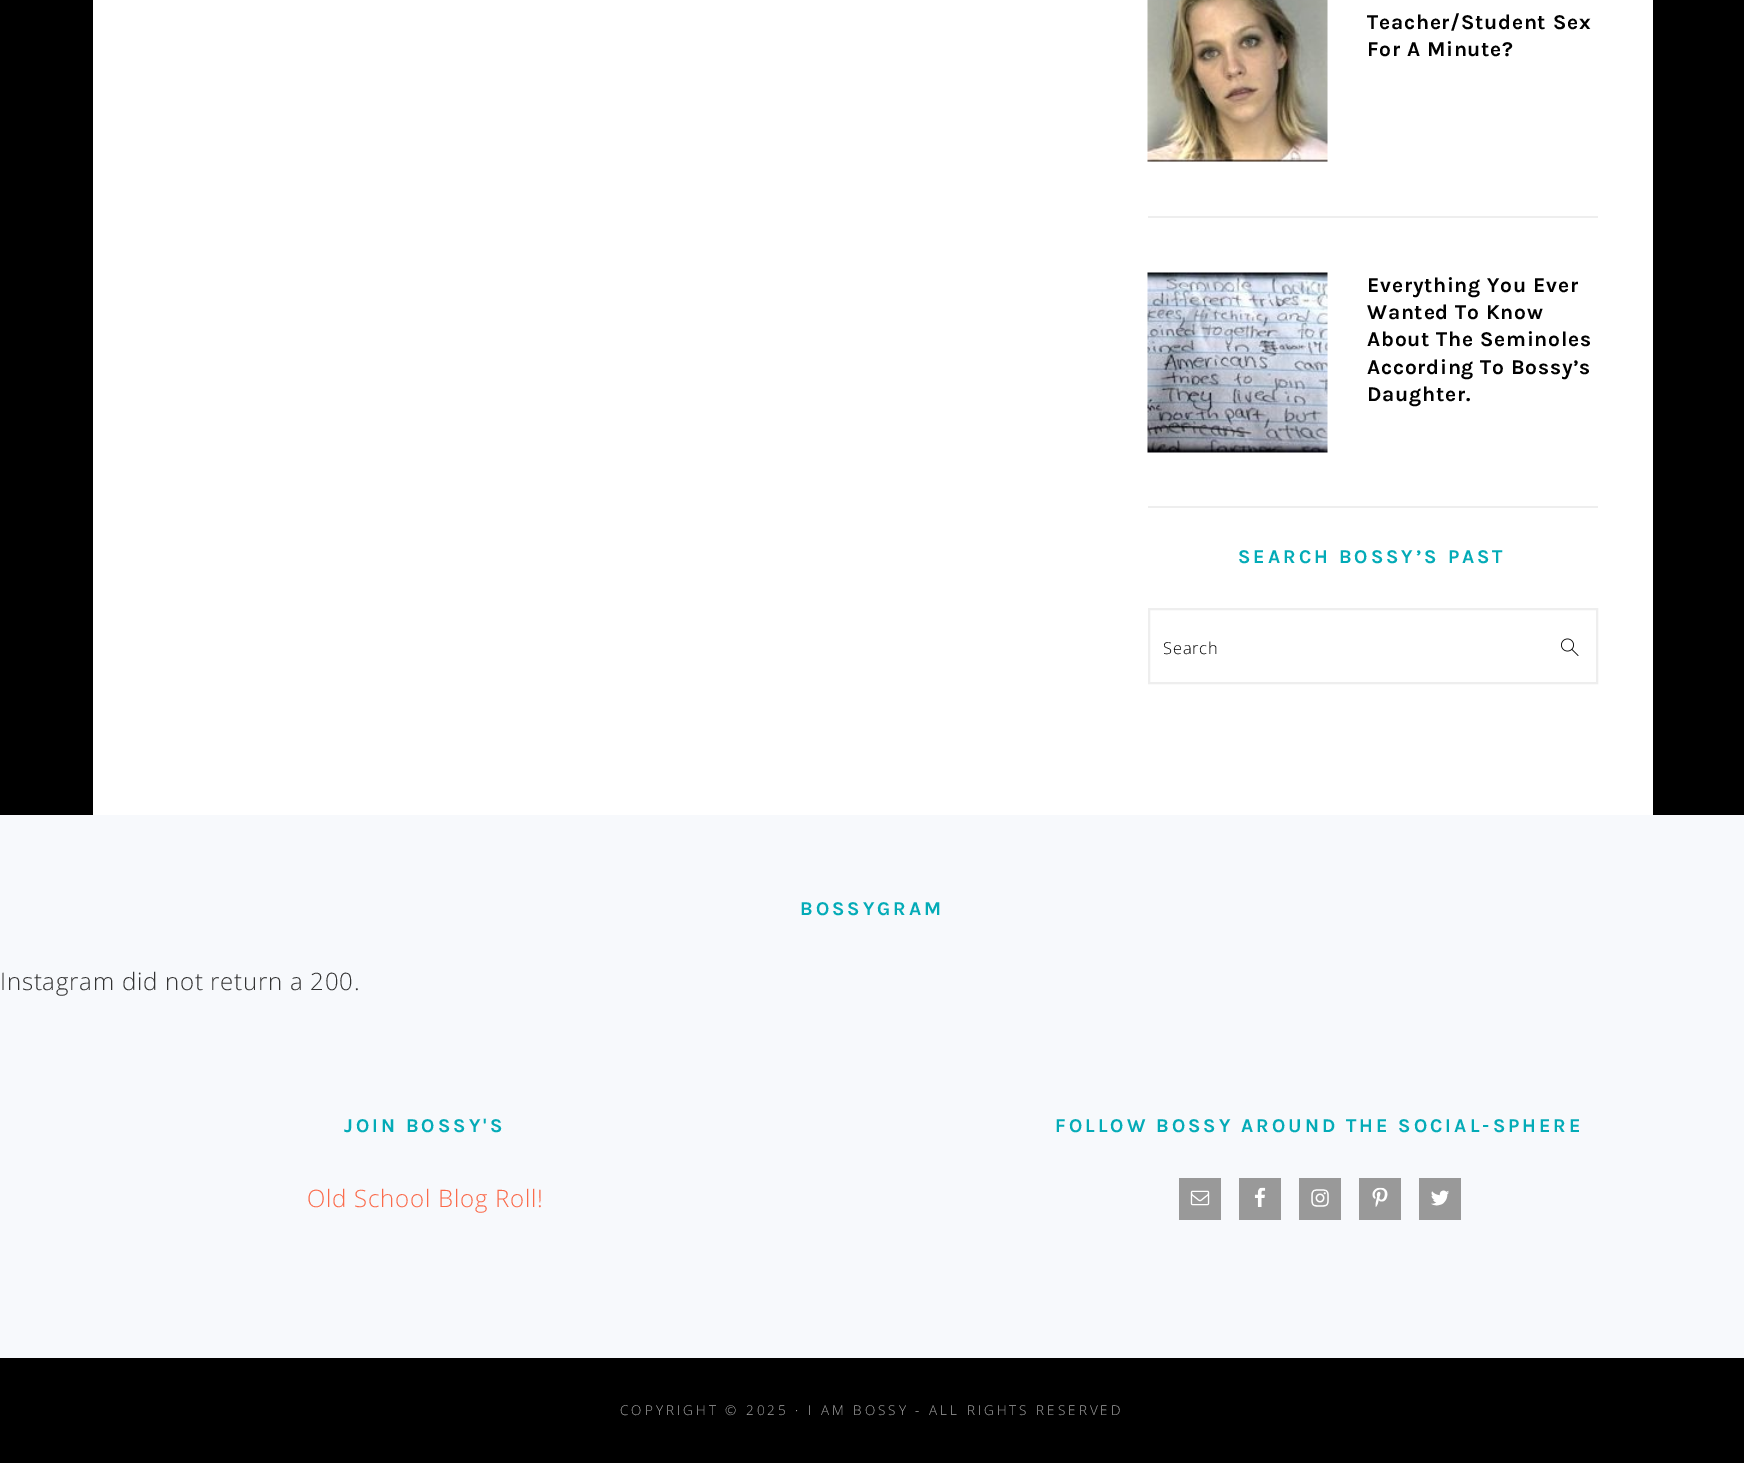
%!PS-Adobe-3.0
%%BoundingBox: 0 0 1744 1463
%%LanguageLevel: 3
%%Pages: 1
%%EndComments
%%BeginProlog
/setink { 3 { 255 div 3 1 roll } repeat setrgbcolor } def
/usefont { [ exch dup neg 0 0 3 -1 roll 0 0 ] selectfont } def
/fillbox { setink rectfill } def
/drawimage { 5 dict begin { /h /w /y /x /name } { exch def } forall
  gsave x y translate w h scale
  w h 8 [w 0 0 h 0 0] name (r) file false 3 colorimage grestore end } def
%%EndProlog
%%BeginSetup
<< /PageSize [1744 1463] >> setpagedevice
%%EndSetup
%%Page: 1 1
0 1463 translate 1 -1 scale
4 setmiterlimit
0 0 1744 1463 0 0 0 fillbox
93 0 1560 815 255 255 255 fillbox
1148 506 450 2 238 238 238 fillbox
1148 216 450 2 238 238 238 fillbox
(assets/img1.rgb) 1147 0 181 162 drawimage
/Karla-Bold 21 usefont
1 1 1 setink
1367 29 moveto 0.75 0 (Teacher/Student Sex) ashow
1367 56 moveto 0.75 0 (For A Minute?) ashow
(assets/img2.rgb) 1147 272 181 181 drawimage
1367 292 moveto 0.75 0 (Everything You Ever) ashow
1367 319 moveto 0.75 0 (Wanted To Know) ashow
1367 346 moveto 0.75 0 (About The Seminoles) ashow
1367 374 moveto 0.75 0 (According To Bossy’s) ashow
1367 401 moveto 0.75 0 (Daughter.) ashow
/Karla-Bold 19.5 usefont
3 171 183 setink
1238 563 moveto 3 0 (SEARCH BOSSY’S PAST) ashow
238 238 238 setink
2 setlinewidth
1149 609 448 74 rectstroke
(assets/img3.rgb) 1561 638 18 18 drawimage
/OpenSans-Light 16.5 usefont
1 1 1 setink
1163 654 moveto 0.75 0 (Search) ashow
0 815 1744 543 247 249 252 fillbox
/Karla-Bold 19.5 usefont
3 171 183 setink
800 915 moveto 3 0 (BOSSYGRAM) ashow
/OpenSans-Light 24 usefont
51 51 51 setink
0 990 moveto 0.75 0 (Instagram did not return a 200.) ashow
/Karla-Bold 19.5 usefont
3 171 183 setink
344 1132 moveto 3 0 (JOIN BOSSY'S) ashow
/OpenSans-Light 24 usefont
251 106 74 setink
307 1207 moveto 0.75 0 (Old School Blog Roll!) ashow
/Karla-Bold 19.5 usefont
3 171 183 setink
1055 1132 moveto 3 0 (FOLLOW BOSSY AROUND THE SOCIAL-SPHERE) ashow
1179 1178 42 42 153 153 153 fillbox
(assets/img4.rgb) 1190 1190 20 16 drawimage
1239 1178 42 42 153 153 153 fillbox
(assets/img5.rgb) 1254 1187 12 20 drawimage
1299 1178 42 42 153 153 153 fillbox
(assets/img6.rgb) 1311 1189 18 18 drawimage
1359 1178 42 42 153 153 153 fillbox
(assets/img7.rgb) 1372 1187 16 20 drawimage
1419 1178 42 42 153 153 153 fillbox
(assets/img8.rgb) 1431 1190 18 16 drawimage
/OpenSans-Light 13.5 usefont
170 170 170 setink
620 1415 moveto 3 0 (COPYRIGHT © 2025 · I AM BOSSY - ALL RIGHTS RESERVED) ashow
showpage
%%EOF
